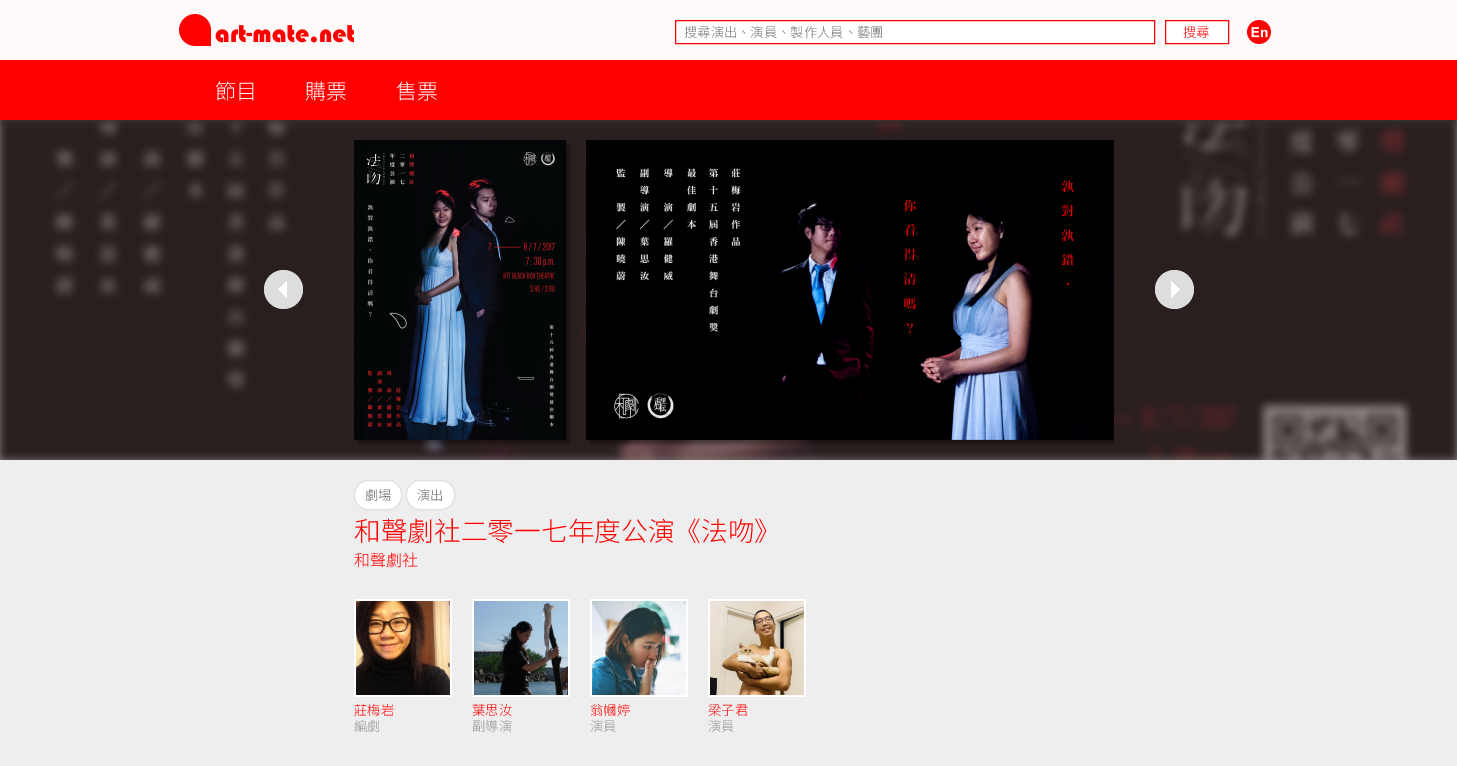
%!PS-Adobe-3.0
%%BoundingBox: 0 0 1457 766
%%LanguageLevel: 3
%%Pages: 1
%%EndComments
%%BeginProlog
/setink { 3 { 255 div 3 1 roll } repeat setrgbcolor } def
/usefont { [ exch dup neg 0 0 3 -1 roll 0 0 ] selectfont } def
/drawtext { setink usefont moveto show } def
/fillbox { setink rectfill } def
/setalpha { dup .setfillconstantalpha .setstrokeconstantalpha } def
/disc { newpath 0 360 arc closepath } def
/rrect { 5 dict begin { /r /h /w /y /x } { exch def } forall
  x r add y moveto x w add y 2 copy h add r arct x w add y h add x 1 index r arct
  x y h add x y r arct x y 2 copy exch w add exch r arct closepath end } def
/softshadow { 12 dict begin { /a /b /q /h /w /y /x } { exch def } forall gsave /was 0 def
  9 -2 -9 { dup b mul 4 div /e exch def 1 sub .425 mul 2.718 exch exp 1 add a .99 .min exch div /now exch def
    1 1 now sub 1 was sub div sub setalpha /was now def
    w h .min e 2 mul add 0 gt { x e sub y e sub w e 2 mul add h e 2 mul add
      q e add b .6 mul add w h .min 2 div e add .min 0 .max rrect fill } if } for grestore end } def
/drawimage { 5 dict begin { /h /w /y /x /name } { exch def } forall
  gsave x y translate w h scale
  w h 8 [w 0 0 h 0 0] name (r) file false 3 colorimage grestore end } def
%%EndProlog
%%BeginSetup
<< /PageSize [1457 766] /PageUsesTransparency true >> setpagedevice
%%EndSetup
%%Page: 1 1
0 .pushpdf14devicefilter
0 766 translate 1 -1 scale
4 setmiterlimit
0 0 1457 766 238 238 238 fillbox
0 120 1457 340 136 126 126 fillbox
0 0 1457 60 255 250 250 fillbox
(assets/img1.rgb) 179 14 175 32 drawimage
255 255 255 setink
675.5 20.5 moveto 1154.5 20.5 lineto 1154.5 43.5 lineto 675.5 43.5 lineto closepath gsave fill grestore
255 0 0 setink
stroke
(搜尋演出、演員、製作人員、藝團) 684 37 /NotoSansHK-Thin 13.3 117 117 117 drawtext
255 255 255 setink
1165.5 20.5 moveto 1228.5 20.5 lineto 1228.5 43.5 lineto 1165.5 43.5 lineto closepath gsave fill grestore
255 0 0 setink
stroke
(搜尋) 1183 37 /NotoSansHK-Thin 13.3 255 0 0 drawtext
(assets/img2.rgb) 1247 20 24 24 drawimage
(assets/img3.rgb) 0 120 1457 340 drawimage
0 0 0 setink
0 64 1457 60 0 2 0.4 softshadow
0 60 1457 60 255 0 0 fillbox
(節目) 215 99 /NotoSansHK-Thin 21 255 255 255 drawtext
(購票) 305 99 /NotoSansHK-Thin 21 255 255 255 drawtext
(售票) 396 99 /NotoSansHK-Thin 21 255 255 255 drawtext
221 221 221 setink
283.5 289.5 19.5 disc fill
(assets/img4.rgb) 278 281 9 17 drawimage
0 0 0 setink
358 144 212 300 0 2 0.4 softshadow
(assets/img5.rgb) 354 140 212 300 drawimage
gsave
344 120 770 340 rectclip
590 144 789 300 0 2 0.4 softshadow
grestore
(assets/img6.rgb) 586 140 528 300 drawimage
221 221 221 setink
1174.5 289.5 19.5 disc fill
(assets/img7.rgb) 1171 281 9 17 drawimage
255 255 255 setink
354.5 480.5 47 29 13.5 rrect gsave fill grestore
223 223 223 setink
stroke
(劇場) 365 500 /NotoSansHK-Thin 13.3 102 102 102 drawtext
255 255 255 setink
406.5 480.5 48 29 13.5 rrect gsave fill grestore
223 223 223 setink
stroke
(演出) 417 500 /NotoSansHK-Thin 13.3 102 102 102 drawtext
(和聲劇社二零一七年度公演《法吻》) 354 541 /NotoSansHK-Thin 26.7 255 0 0 drawtext
(和聲劇社) 354 566 /NotoSansHK-Thin 16 255 0 0 drawtext
354 599 98 98 255 255 255 fillbox
(assets/img8.rgb) 356 601 94 94 drawimage
(莊梅岩) 354 715 /NotoSansHK-Thin 13.3 255 0 0 drawtext
(編劇) 354 731 /NotoSansHK-Thin 13.3 149 149 149 drawtext
472 599 98 98 255 255 255 fillbox
(assets/img9.rgb) 474 601 94 94 drawimage
(葉思汝) 472 715 /NotoSansHK-Thin 13.3 255 0 0 drawtext
(副導演) 472 731 /NotoSansHK-Thin 13.3 149 149 149 drawtext
590 599 98 98 255 255 255 fillbox
(assets/img10.rgb) 592 601 94 94 drawimage
(翁幗婷) 590 715 /NotoSansHK-Thin 13.3 255 0 0 drawtext
(演員) 590 731 /NotoSansHK-Thin 13.3 149 149 149 drawtext
708 599 98 98 255 255 255 fillbox
(assets/img11.rgb) 710 601 94 94 drawimage
(梁子君) 708 715 /NotoSansHK-Thin 13.3 255 0 0 drawtext
(演員) 708 731 /NotoSansHK-Thin 13.3 149 149 149 drawtext
.poppdf14devicefilter showpage
%%EOF
